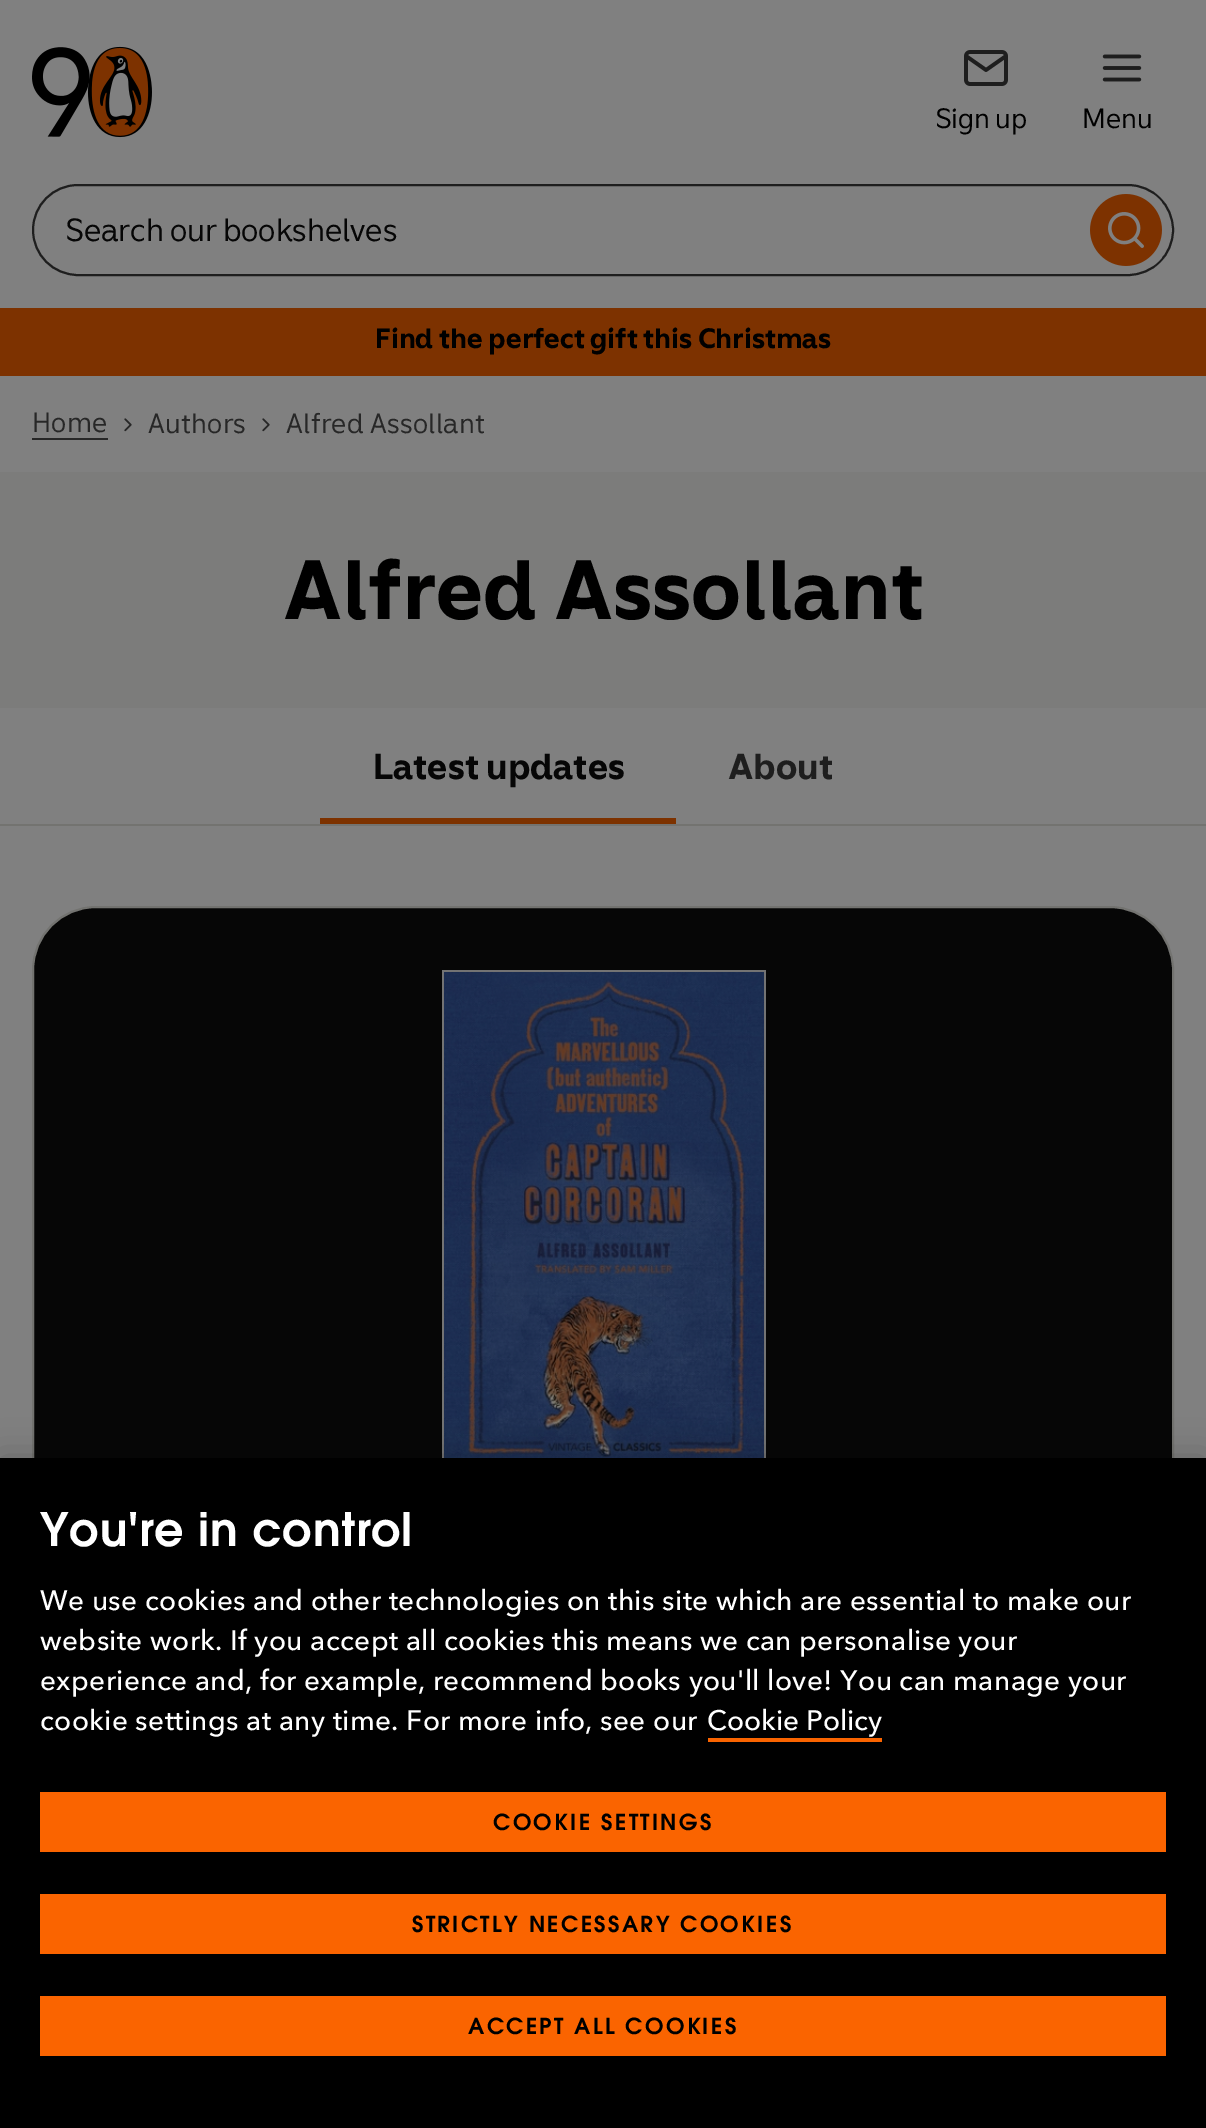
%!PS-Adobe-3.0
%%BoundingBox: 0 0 1206 2128
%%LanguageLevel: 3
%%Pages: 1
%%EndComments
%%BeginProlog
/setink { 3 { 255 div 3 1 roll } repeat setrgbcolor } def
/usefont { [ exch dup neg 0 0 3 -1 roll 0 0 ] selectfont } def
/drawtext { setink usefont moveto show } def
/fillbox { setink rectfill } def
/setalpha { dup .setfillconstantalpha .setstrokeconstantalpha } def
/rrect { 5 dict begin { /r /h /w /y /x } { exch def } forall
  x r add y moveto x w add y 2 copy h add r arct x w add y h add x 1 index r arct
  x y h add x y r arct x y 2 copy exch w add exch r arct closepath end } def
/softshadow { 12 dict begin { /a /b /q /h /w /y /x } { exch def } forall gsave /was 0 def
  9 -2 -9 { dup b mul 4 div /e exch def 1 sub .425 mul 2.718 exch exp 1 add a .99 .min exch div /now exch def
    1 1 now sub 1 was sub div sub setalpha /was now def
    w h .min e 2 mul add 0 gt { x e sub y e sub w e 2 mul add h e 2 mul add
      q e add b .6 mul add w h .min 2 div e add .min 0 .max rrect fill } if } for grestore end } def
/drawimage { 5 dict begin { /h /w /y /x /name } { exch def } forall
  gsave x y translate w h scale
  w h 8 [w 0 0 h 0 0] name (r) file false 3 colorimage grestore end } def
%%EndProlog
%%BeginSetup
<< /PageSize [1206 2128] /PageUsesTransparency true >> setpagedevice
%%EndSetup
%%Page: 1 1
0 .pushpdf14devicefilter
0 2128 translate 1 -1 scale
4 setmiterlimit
0 0 1206 2128 128 128 128 fillbox
(assets/img1.rgb) 32 46 120 92 drawimage
(assets/img2.rgb) 964 50 44 36 drawimage
(Sign up) 936 128 /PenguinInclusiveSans-Regular 28 0 0 0 drawtext
(assets/img3.rgb) 1102 54 40 28 drawimage
(Menu) 1082 128 /PenguinInclusiveSans-Regular 28 0 0 0 drawtext
30 30 30 setink
2 setlinewidth
33 185 1140 90 45 rrect stroke
(Search our bookshelves) 66 241 /PenguinInclusiveSans-Regular 32 6 6 6 drawtext
(assets/img4.rgb) 1090 194 72 72 drawimage
0 308 1206 68 125 50 0 fillbox
(Find the perfect gift this Christmas) 375 348 /PenguinInclusiveSans-Bold 28 0 0 0 drawtext
32 438 76 2 39 39 39 fillbox
/PenguinInclusiveSans-Regular 28 usefont
32 432 moveto 0.3 0 (Home) ashow
(assets/img5.rgb) 124 418 8 14 drawimage
148 433 moveto 0.3 0 (Authors) ashow
(assets/img5.rgb) 262 418 8 14 drawimage
286 433 moveto 0.3 0 (Alfred Assollant) ashow
0 472 1206 236 124 124 123 fillbox
(Alfred Assollant) 283 619 /PenguinInclusiveSans-Bold 84 0 0 0 drawtext
0 824 1206 2 115 115 112 fillbox
(Latest updates) 373 779 /PenguinInclusiveSans-Bold 36 6 6 6 drawtext
320 818 356 6 125 50 0 fillbox
(About) 728 779 /PenguinInclusiveSans-Bold 36 30 30 30 drawtext
6 6 6 setink
33 907 1140 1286 63 rrect gsave fill grestore
115 115 112 setink
stroke
(assets/img6.rgb) 442 970 324 488 drawimage
0 0 0 setink
0 1458 1206 670 0 18 0.2 softshadow
0 1458 1206 670 0 0 0 fillbox
/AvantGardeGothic-SemiBold 46 usefont
255 255 255 setink
40 1546 moveto 0.8 0 (You're in control) ashow
/AvenirNext-Medium 28 usefont
40 1610 moveto 0.35 0 (We use cookies and other technologies on this site which are essential to make our) ashow
40 1650 moveto 0.35 0 (website work. If you accept all cookies this means we can personalise your) ashow
40 1690 moveto 0.35 0 (experience and, for example, recommend books you'll love! You can manage your) ashow
40 1730 moveto 0.35 0 (cookie settings at any time. For more info, see our) ashow
(Cookie Policy) 707 1730 /AvenirNext-Medium 28 255 255 255 drawtext
708 1738 174 4 250 100 0 fillbox
40 1792 1126 60 250 100 0 fillbox
/AvantGardeGothic-SemiBold 22 usefont
0 0 0 setink
493 1830 moveto 2.35 0 (COOKIE SETTINGS) ashow
40 1894 1126 60 250 100 0 fillbox
0 0 0 setink
412 1932 moveto 2.35 0 (STRICTLY NECESSARY COOKIES) ashow
40 1996 1126 60 250 100 0 fillbox
0 0 0 setink
468 2034 moveto 2.35 0 (ACCEPT ALL COOKIES) ashow
.poppdf14devicefilter showpage
%%EOF
